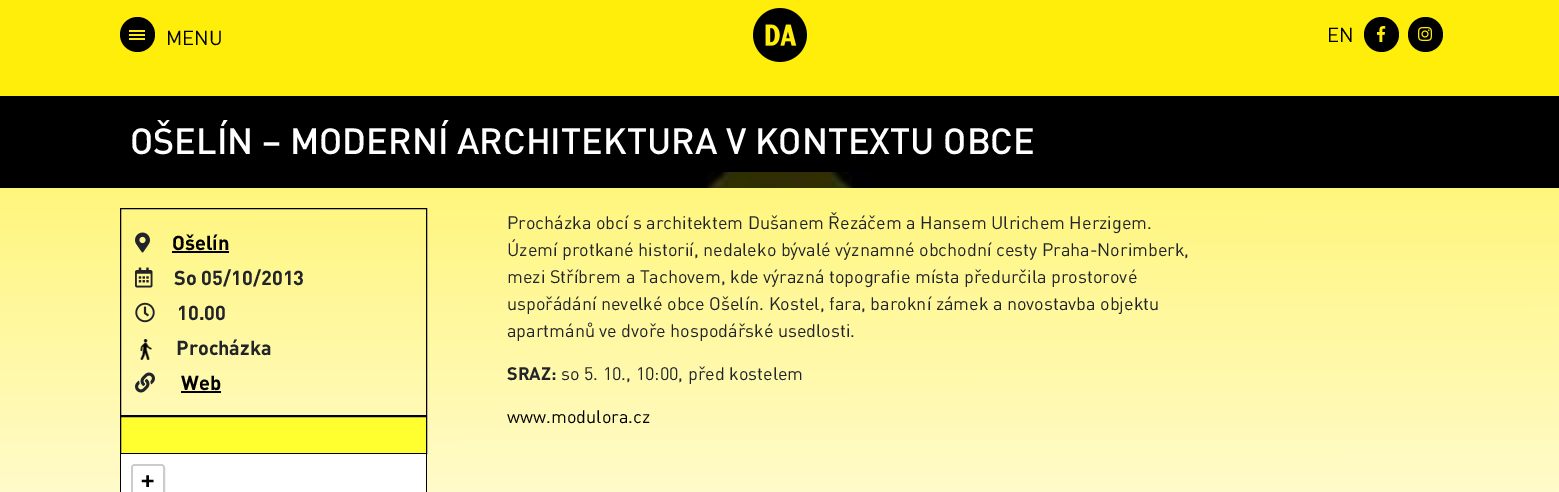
%!PS-Adobe-3.0
%%BoundingBox: 0 0 1559 492
%%LanguageLevel: 3
%%Pages: 1
%%EndComments
%%BeginProlog
/setink { 3 { 255 div 3 1 roll } repeat setrgbcolor } def
/usefont { [ exch dup neg 0 0 3 -1 roll 0 0 ] selectfont } def
/drawtext { setink usefont moveto show } def
/fillbox { setink rectfill } def
/disc { newpath 0 360 arc closepath } def
/rrect { 5 dict begin { /r /h /w /y /x } { exch def } forall
  x r add y moveto x w add y 2 copy h add r arct x w add y h add x 1 index r arct
  x y h add x y r arct x y 2 copy exch w add exch r arct closepath end } def
/drawimage { 5 dict begin { /h /w /y /x /name } { exch def } forall
  gsave x y translate w h scale
  w h 8 [w 0 0 h 0 0] name (r) file false 3 colorimage grestore end } def
%%EndProlog
%%BeginSetup
<< /PageSize [1559 492] >> setpagedevice
%%EndSetup
%%Page: 1 1
0 492 translate 1 -1 scale
4 setmiterlimit
0 0 1559 492 255 255 255 fillbox
0 0 1559 96 255 237 10 fillbox
0 0 0 setink
137.5 34.5 17.5 disc fill
129 30 16 2 255 237 10 fillbox
129 34 16 2 255 237 10 fillbox
129 38 16 2 255 237 10 fillbox
(MENU) 166 45 /DIN-Regular 20 0 0 0 drawtext
(assets/img1.rgb) 753 8 54 54 drawimage
(EN) 1327 42 /DIN-Regular 20 0 0 0 drawtext
1381.5 34.5 17.5 disc fill
(assets/img2.rgb) 1377 26 9 16 drawimage
1425.5 34.5 17.5 disc fill
(assets/img3.rgb) 1418 27 14 14 drawimage
gsave 0 188 moveto 1559 188 lineto 1559 492 lineto 0 492 lineto closepath clip newpath
<< /ShadingType 2 /ColorSpace /DeviceRGB /Coords [779 -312 780 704] /Extend [true true] /Function << /FunctionType 2 /Domain [0 1] /C0 [1 0.929 0] /C1 [1 1 1] /N 1 >> >> shfill grestore
(assets/img4.rgb) 0 96 1559 92 drawimage
708 149 164 23 0 0 0 fillbox
(OŠELÍN – MODERNÍ ARCHITEKTURA V KONTEXTU OBCE) 130 154 /DIN-Medium 36 255 255 255 drawtext
0 0 0 setink
120.5 208.5 306 207 rectstroke
(assets/img5.rgb) 135 232 15 21 drawimage
(Ošelín) 172 250 /DIN-Bold 20 0 0 0 drawtext
172 251 57 2 0 0 0 fillbox
(assets/img6.rgb) 135 267 18 21 drawimage
(So 05/10/2013) 174 285 /DIN-Bold 20 33 37 41 drawtext
(assets/img7.rgb) 135 302 20 21 drawimage
(10.00) 177 320 /DIN-Bold 20 33 37 41 drawtext
(assets/img8.rgb) 140 339 13 21 drawimage
(Procházka) 176 355 /DIN-Bold 20 33 37 41 drawtext
(assets/img9.rgb) 135 372 20 21 drawimage
(Web) 181 390 /DIN-Bold 20 0 0 0 drawtext
181 391 40 2 0 0 0 fillbox
255 255 48 setink
120.5 416.5 moveto 426.5 416.5 lineto 426.5 453.5 lineto 120.5 453.5 lineto closepath gsave fill grestore
0 0 0 setink
stroke
426 454 1 38 0 0 0 fillbox
120 454 1 38 0 0 0 fillbox
121 454 305 38 255 255 255 fillbox
204 204 204 setink
2 setlinewidth
132 465 32 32 3 rrect stroke
255 255 255 setink
135 466 moveto 161 466 lineto 162 466 163 467 163 468 curveto 163 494 lineto 133 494 lineto 133 468 lineto 133 467 134 466 135 466 curveto closepath fill
(+) 141 488 /DejaVuSansMono-Bold 22 0 0 0 drawtext
(Procházka obcí s architektem Dušanem Řezáčem a Hansem Ulrichem Herzigem.) 507 229 /DIN-Regular 18 33 37 41 drawtext
(Území protkané historií, nedaleko bývalé významné obchodní cesty Praha-Norimberk,) 507 256 /DIN-Regular 18 33 37 41 drawtext
(mezi Stříbrem a Tachovem, kde výrazná topografie místa předurčila prostorové) 507 283 /DIN-Regular 18 33 37 41 drawtext
(uspořádání nevelké obce Ošelín. Kostel, fara, barokní zámek a novostavba objektu) 507 310 /DIN-Regular 18 33 37 41 drawtext
(apartmánů ve dvoře hospodářské usedlosti.) 507 337 /DIN-Regular 18 33 37 41 drawtext
(SRAZ:) 507 380 /DIN-Bold 18 33 37 41 drawtext
(so 5. 10., 10:00, před kostelem) 561 380 /DIN-Regular 18 33 37 41 drawtext
(www.modulora.cz) 507 423 /DIN-Regular 18 0 0 0 drawtext
showpage
%%EOF
